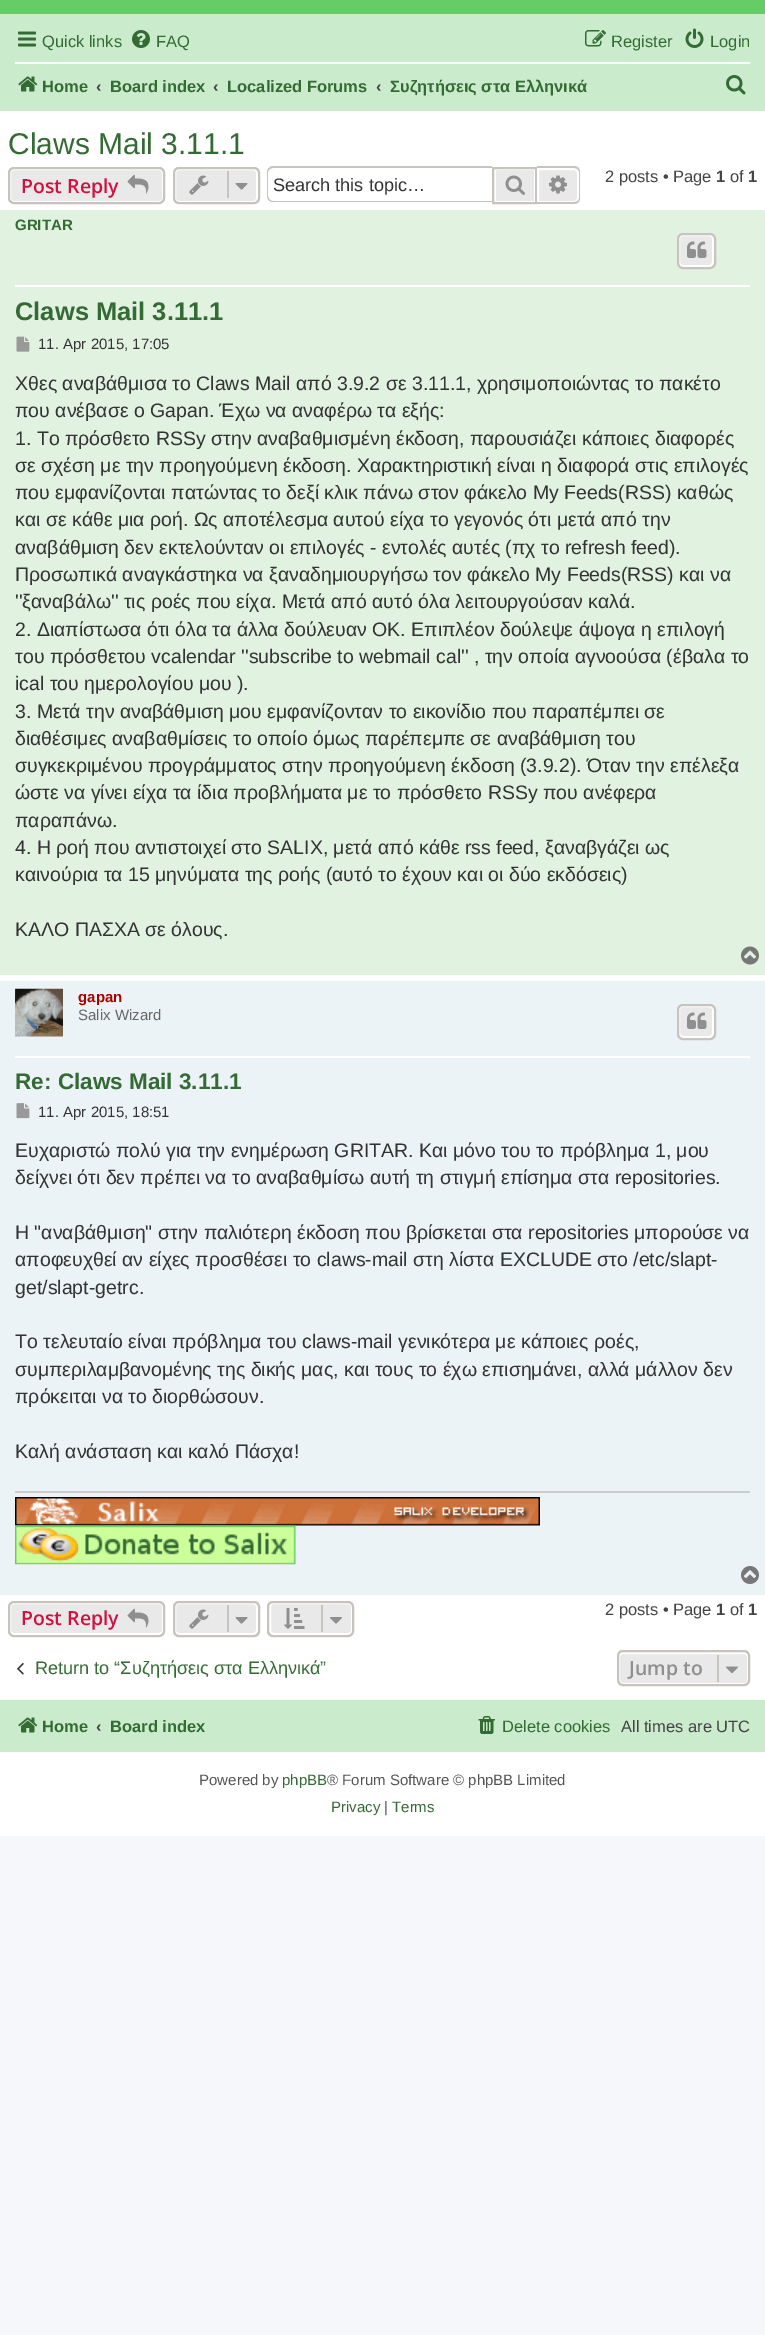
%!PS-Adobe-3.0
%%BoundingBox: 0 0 765 2335
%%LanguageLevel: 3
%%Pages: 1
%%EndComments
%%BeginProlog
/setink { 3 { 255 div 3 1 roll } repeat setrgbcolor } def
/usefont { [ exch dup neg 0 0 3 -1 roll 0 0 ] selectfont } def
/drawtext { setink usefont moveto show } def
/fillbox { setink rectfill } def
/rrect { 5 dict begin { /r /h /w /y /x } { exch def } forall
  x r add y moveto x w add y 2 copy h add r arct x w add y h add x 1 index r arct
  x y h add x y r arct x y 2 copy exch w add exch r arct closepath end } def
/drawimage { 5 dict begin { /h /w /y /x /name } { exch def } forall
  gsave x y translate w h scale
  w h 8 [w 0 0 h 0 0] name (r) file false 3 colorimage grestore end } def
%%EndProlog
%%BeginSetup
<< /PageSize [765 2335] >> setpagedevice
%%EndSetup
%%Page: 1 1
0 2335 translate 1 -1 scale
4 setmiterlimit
0 0 765 2335 245 247 250 fillbox
0 111 765 1725 255 255 255 fillbox
0 0 765 14 102 204 102 fillbox
0 14 765 97 202 235 204 fillbox
(assets/img1.rgb) 18 31 18 16 drawimage
(Quick links) 42 47 /LiberationSans-Regular 16.5 52 107 52 drawtext
(assets/img2.rgb) 132 30 18 18 drawimage
(FAQ) 156 47 /LiberationSans-Regular 16.5 52 107 52 drawtext
(assets/img3.rgb) 585 30 21 17 drawimage
(Register) 611 47 /LiberationSans-Regular 16.5 52 107 52 drawtext
(assets/img4.rgb) 685 28 19 20 drawimage
(Login) 710 47 /LiberationSans-Regular 16.5 52 107 52 drawtext
15 62 735 2 255 255 255 fillbox
(assets/img5.rgb) 18 76 20 16 drawimage
(Home) 42 92 /LiberationSans-Bold 16.5 52 107 52 drawtext
(‹) 96 92 /LiberationSans-Bold 16.5 68 68 68 drawtext
(Board index) 110 92 /LiberationSans-Bold 16.5 52 107 52 drawtext
(‹) 213 92 /LiberationSans-Bold 16.5 68 68 68 drawtext
(Localized Forums) 227 92 /LiberationSans-Bold 16.5 52 107 52 drawtext
(‹) 376 92 /LiberationSans-Bold 16.5 68 68 68 drawtext
(Συζητήσεις στα Ελληνικά) 390 92 /LiberationSans-Bold 16.5 52 107 52 drawtext
(assets/img6.rgb) 726 75 20 20 drawimage
(Claws Mail 3.11.1) 8 154 /LiberationSans-Regular 30 52 107 52 drawtext
233 233 233 setink
8 167 157 37 6 rrect fill
255 255 255 setink
2 setlinewidth
10 169 153 33 4 rrect stroke
199 195 191 setink
9 168 155 35 5 rrect stroke
(Post Reply) 21 193 /OpenSans-SemiBold 19.5 211 17 65 drawtext
(assets/img7.rgb) 127 174 22 20 drawimage
233 233 233 setink
173 167 87 37 6 rrect fill
255 255 255 setink
175 169 82 33 4 rrect stroke
199 195 191 setink
174 168 85 35 5 rrect stroke
(assets/img8.rgb) 189 175 20 20 drawimage
227 171 2 27 199 195 191 fillbox
(assets/img9.rgb) 235 183 13 7 drawimage
273 166 moveto 492 166 lineto 492 202 lineto 273 202 lineto 270 202 267 200 267 196 curveto 267 172 lineto 267 169 270 166 273 166 curveto closepath 273 168 moveto 492 168 lineto 492 201 lineto 273 201 lineto 271 201 268 199 268 196 curveto 268 172 lineto 268 170 271 168 273 168 curveto closepath eofill
(Search this topic…) 273 191 /LiberationSans-Regular 18.1 51 51 51 drawtext
496 170 38 31 233 233 233 fillbox
199 195 191 setink
493 168 43 35 rectstroke
(assets/img10.rgb) 505 175 20 20 drawimage
233 233 233 setink
538 169 moveto 574 169 lineto 576 169 578 171 578 173 curveto 578 198 lineto 578 200 576 202 574 202 curveto 538 202 lineto closepath gsave fill grestore
255 255 255 setink
stroke
199 195 191 setink
537 166 moveto 574 166 lineto 578 166 580 169 580 172 curveto 580 198 lineto 580 201 578 204 574 204 curveto 537 204 lineto closepath 537 168 moveto 574 168 lineto 577 168 579 170 579 172 curveto 579 198 lineto 579 200 577 202 574 202 curveto 537 202 lineto closepath eofill
(assets/img11.rgb) 549 175 18 19 drawimage
(2 posts • Page) 605 182 /LiberationSans-Regular 16.5 68 68 68 drawtext
(1) 716 182 /LiberationSans-Bold 16.5 68 68 68 drawtext
(of) 730 182 /LiberationSans-Regular 16.5 68 68 68 drawtext
(1) 748 182 /LiberationSans-Bold 16.5 68 68 68 drawtext
0 210 765 765 225 242 225 fillbox
15 285 735 2 255 255 255 fillbox
(GRITAR) 15 230 /LiberationSans-Bold 15 52 107 52 drawtext
233 233 233 setink
677 233 39 36 6 rrect fill
255 255 255 setink
679 235 34 31 4 rrect stroke
199 195 191 setink
678 234 37 34 5 rrect stroke
(assets/img12.rgb) 687 241 20 17 drawimage
(Claws Mail 3.11.1) 15 320 /LiberationSans-Bold 25.5 52 107 52 drawtext
(assets/img13.rgb) 16 336 14 16 drawimage
(11. Apr 2015, 17:05) 38 349 /LiberationSans-Regular 15 51 51 51 drawtext
(Χθες αναβάθμισα το Claws Mail από 3.9.2 σε 3.11.1, χρησιμοποιώντας το πακέτο) 15 390 /LiberationSans-Regular 19.5 51 51 51 drawtext
(που ανέβασε ο Gapan. Έχω να αναφέρω τα εξής:) 15 417 /LiberationSans-Regular 19.5 51 51 51 drawtext
(1. Το πρόσθετο RSSy στην αναβαθμισμένη έκδοση, παρουσιάζει κάποιες διαφορές) 15 445 /LiberationSans-Regular 19.5 51 51 51 drawtext
(σε σχέση με την προηγούμενη έκδοση. Χαρακτηριστική είναι η διαφορά στις επιλογές) 15 472 /LiberationSans-Regular 19.5 51 51 51 drawtext
(που εμφανίζονται πατώντας το δεξί κλικ πάνω στον φάκελο My Feeds\(RSS\) καθώς) 15 499 /LiberationSans-Regular 19.5 51 51 51 drawtext
(και σε κάθε μια ροή. Ως αποτέλεσμα αυτού είχα το γεγονός ότι μετά από την) 15 526 /LiberationSans-Regular 19.5 51 51 51 drawtext
(αναβάθμιση δεν εκτελούνταν οι επιλογές - εντολές αυτές \(πχ το refresh feed\).) 15 554 /LiberationSans-Regular 19.5 51 51 51 drawtext
(Προσωπικά αναγκάστηκα να ξαναδημιουργήσω τον φάκελο My Feeds\(RSS\) και να) 15 581 /LiberationSans-Regular 19.5 51 51 51 drawtext
(''ξαναβάλω'' τις ροές που είχα. Μετά από αυτό όλα λειτουργούσαν καλά.) 15 608 /LiberationSans-Regular 19.5 51 51 51 drawtext
(2. Διαπίστωσα ότι όλα τα άλλα δούλευαν ΟΚ. Επιπλέον δούλεψε άψογα η επιλογή) 15 636 /LiberationSans-Regular 19.5 51 51 51 drawtext
(του πρόσθετου vcalendar ''subscribe to webmail cal'' , την οποία αγνοούσα \(έβαλα το) 15 663 /LiberationSans-Regular 19.5 51 51 51 drawtext
(ical του ημερολογίου μου \).) 15 690 /LiberationSans-Regular 19.5 51 51 51 drawtext
(3. Μετά την αναβάθμιση μου εμφανίζονταν το εικονίδιο που παραπέμπει σε) 15 718 /LiberationSans-Regular 19.5 51 51 51 drawtext
(διαθέσιμες αναβαθμίσεις το οποίο όμως παρέπεμπε σε αναβάθμιση του) 15 745 /LiberationSans-Regular 19.5 51 51 51 drawtext
(συγκεκριμένου προγράμματος στην προηγούμενη έκδοση \(3.9.2\). Όταν την επέλεξα) 15 772 /LiberationSans-Regular 19.5 51 51 51 drawtext
(ώστε να γίνει είχα τα ίδια προβλήματα με το πρόσθετο RSSy που ανέφερα) 15 799 /LiberationSans-Regular 19.5 51 51 51 drawtext
(παραπάνω.) 15 827 /LiberationSans-Regular 19.5 51 51 51 drawtext
(4. Η ροή που αντιστοιχεί στο SALIX, μετά από κάθε rss feed, ξαναβγάζει ως) 15 854 /LiberationSans-Regular 19.5 51 51 51 drawtext
(καινούρια τα 15 μηνύματα της ροής \(αυτό το έχουν και οι δύο εκδόσεις\)) 15 881 /LiberationSans-Regular 19.5 51 51 51 drawtext
(ΚΑΛΟ ΠΑΣΧΑ σε όλους.) 15 936 /LiberationSans-Regular 19.5 51 51 51 drawtext
(assets/img14.rgb) 741 946 18 19 drawimage
0 981 765 614 236 243 247 fillbox
15 1056 735 2 255 255 255 fillbox
(assets/img15.rgb) 15 988 48 49 drawimage
(gapan) 78 1002 /LiberationSans-Bold 15 170 0 0 drawtext
(Salix Wizard) 78 1020 /LiberationSans-Regular 15 102 102 102 drawtext
233 233 233 setink
677 1004 39 36 6 rrect fill
255 255 255 setink
679 1006 34 31 4 rrect stroke
199 195 191 setink
678 1005 37 34 5 rrect stroke
(assets/img12.rgb) 687 1012 20 17 drawimage
(Re: Claws Mail 3.11.1) 15 1089 /LiberationSans-Bold 22.5 52 107 52 drawtext
(assets/img16.rgb) 16 1103 14 16 drawimage
(11. Apr 2015, 18:51) 38 1117 /LiberationSans-Regular 15 51 51 51 drawtext
(Ευχαριστώ πολύ για την ενημέρωση GRITAR. Και μόνο του το πρόβλημα 1, μου) 15 1157 /LiberationSans-Regular 19.5 51 51 51 drawtext
(δείχνει ότι δεν πρέπει να το αναβαθμίσω αυτή τη στιγμή επίσημα στα repositories.) 15 1184 /LiberationSans-Regular 19.5 51 51 51 drawtext
(Η "αναβάθμιση" στην παλιότερη έκδοση που βρίσκεται στα repositories μπορούσε να) 15 1239 /LiberationSans-Regular 19.5 51 51 51 drawtext
(αποφευχθεί αν είχες προσθέσει το claws-mail στη λίστα EXCLUDE στο /etc/slapt-) 15 1266 /LiberationSans-Regular 19.5 51 51 51 drawtext
(get/slapt-getrc.) 15 1294 /LiberationSans-Regular 19.5 51 51 51 drawtext
(Το τελευταίο είναι πρόβλημα του claws-mail γενικότερα με κάποιες ροές,) 15 1348 /LiberationSans-Regular 19.5 51 51 51 drawtext
(συμπεριλαμβανομένης της δικής μας, και τους το έχω επισημάνει, αλλά μάλλον δεν) 15 1376 /LiberationSans-Regular 19.5 51 51 51 drawtext
(πρόκειται να το διορθώσουν.) 15 1403 /LiberationSans-Regular 19.5 51 51 51 drawtext
(Καλή ανάσταση και καλό Πάσχα!) 15 1458 /LiberationSans-Regular 19.5 51 51 51 drawtext
15 1491 735 2 204 204 204 fillbox
(assets/img17.rgb) 15 1497 525 29 drawimage
(assets/img18.rgb) 15 1525 281 40 drawimage
(assets/img19.rgb) 741 1566 18 18 drawimage
233 233 233 setink
8 1601 157 36 6 rrect fill
255 255 255 setink
10 1603 153 31 4 rrect stroke
199 195 191 setink
9 1602 155 34 5 rrect stroke
(Post Reply) 21 1625 /OpenSans-SemiBold 19.5 211 17 65 drawtext
(assets/img7.rgb) 127 1608 22 20 drawimage
233 233 233 setink
173 1601 87 36 6 rrect fill
255 255 255 setink
175 1603 82 31 4 rrect stroke
199 195 191 setink
174 1602 85 34 5 rrect stroke
(assets/img8.rgb) 189 1609 20 20 drawimage
227 1605 2 27 199 195 191 fillbox
(assets/img9.rgb) 235 1617 13 7 drawimage
233 233 233 setink
267 1601 87 36 6 rrect fill
255 255 255 setink
270 1603 82 31 4 rrect stroke
199 195 191 setink
268 1602 85 34 5 rrect stroke
(assets/img20.rgb) 284 1608 21 21 drawimage
321 1605 2 27 199 195 191 fillbox
(assets/img21.rgb) 330 1617 12 7 drawimage
(2 posts • Page) 605 1615 /LiberationSans-Regular 16.5 68 68 68 drawtext
(1) 716 1615 /LiberationSans-Bold 16.5 68 68 68 drawtext
(of) 730 1615 /LiberationSans-Regular 16.5 68 68 68 drawtext
(1) 748 1615 /LiberationSans-Bold 16.5 68 68 68 drawtext
(assets/img22.rgb) 17 1663 7 12 drawimage
(Return to “Συζητήσεις στα Ελληνικά”) 35 1674 /LiberationSans-Regular 18.1 52 107 52 drawtext
233 233 233 setink
617 1650 133 36 6 rrect fill
255 255 255 setink
619 1653 129 31 4 rrect stroke
199 195 191 setink
618 1651 131 34 5 rrect stroke
(Jump to) 629 1675 /OpenSans-SemiBold 19.5 143 143 143 drawtext
717 1655 2 27 199 195 191 fillbox
(assets/img23.rgb) 726 1666 12 8 drawimage
0 1700 765 52 202 235 204 fillbox
(assets/img5.rgb) 18 1717 20 16 drawimage
(Home) 42 1732 /LiberationSans-Bold 16.5 52 107 52 drawtext
(‹) 96 1732 /LiberationSans-Bold 16.5 68 68 68 drawtext
(Board index) 110 1732 /LiberationSans-Bold 16.5 52 107 52 drawtext
(assets/img24.rgb) 478 1716 17 18 drawimage
(Delete cookies) 502 1732 /LiberationSans-Regular 16.5 52 107 52 drawtext
(All times are UTC) 621 1732 /LiberationSans-Regular 16.5 68 68 68 drawtext
(Powered by) 199 1785 /LiberationSans-Regular 15 85 85 85 drawtext
(phpBB) 282 1785 /LiberationSans-Regular 15 52 107 52 drawtext
(® Forum Software © phpBB Limited) 327 1785 /LiberationSans-Regular 15 85 85 85 drawtext
(Privacy) 331 1812 /LiberationSans-Regular 15 52 107 52 drawtext
(|) 384 1812 /LiberationSans-Regular 15 85 85 85 drawtext
(Terms) 392 1812 /LiberationSans-Regular 15 52 107 52 drawtext
showpage
%%EOF
